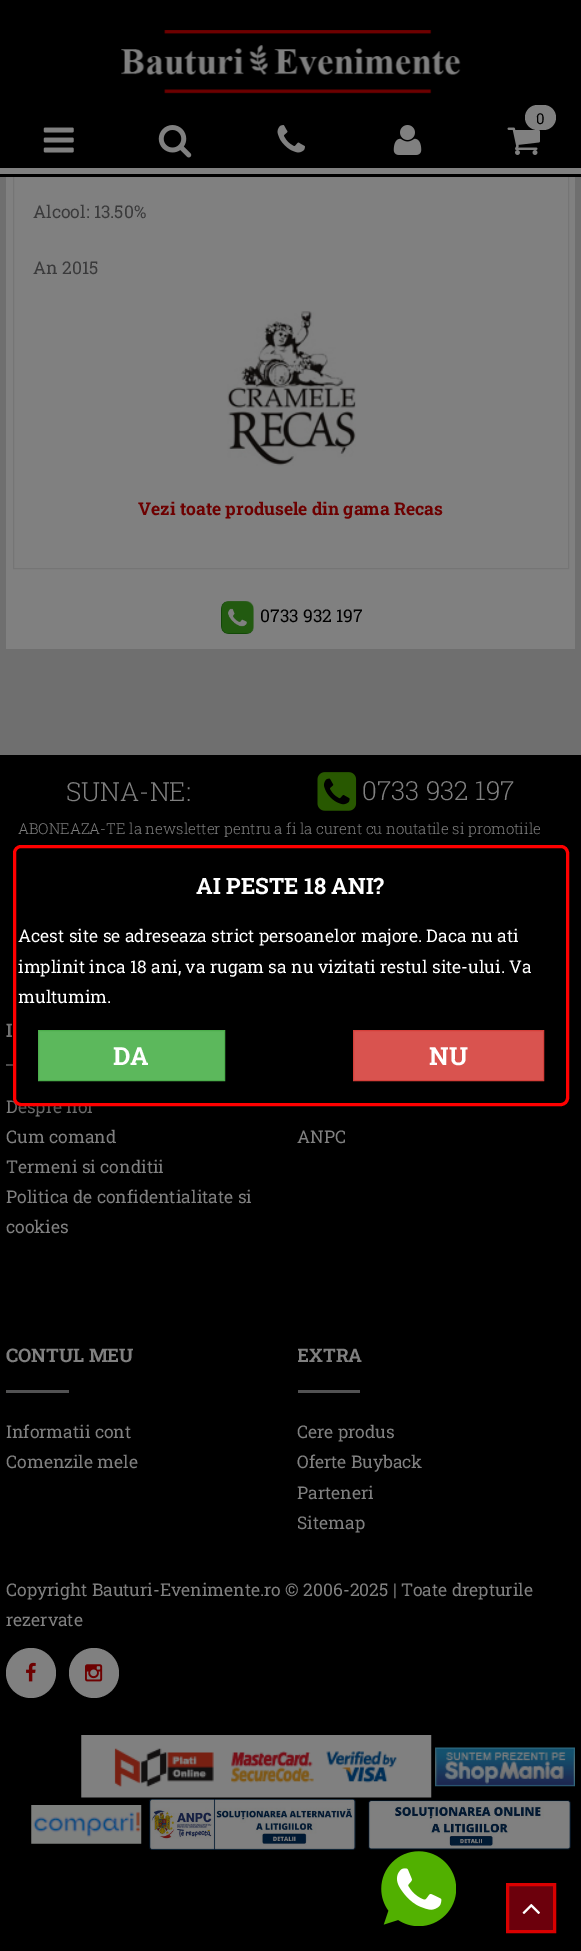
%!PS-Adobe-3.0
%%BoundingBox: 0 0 581 1951
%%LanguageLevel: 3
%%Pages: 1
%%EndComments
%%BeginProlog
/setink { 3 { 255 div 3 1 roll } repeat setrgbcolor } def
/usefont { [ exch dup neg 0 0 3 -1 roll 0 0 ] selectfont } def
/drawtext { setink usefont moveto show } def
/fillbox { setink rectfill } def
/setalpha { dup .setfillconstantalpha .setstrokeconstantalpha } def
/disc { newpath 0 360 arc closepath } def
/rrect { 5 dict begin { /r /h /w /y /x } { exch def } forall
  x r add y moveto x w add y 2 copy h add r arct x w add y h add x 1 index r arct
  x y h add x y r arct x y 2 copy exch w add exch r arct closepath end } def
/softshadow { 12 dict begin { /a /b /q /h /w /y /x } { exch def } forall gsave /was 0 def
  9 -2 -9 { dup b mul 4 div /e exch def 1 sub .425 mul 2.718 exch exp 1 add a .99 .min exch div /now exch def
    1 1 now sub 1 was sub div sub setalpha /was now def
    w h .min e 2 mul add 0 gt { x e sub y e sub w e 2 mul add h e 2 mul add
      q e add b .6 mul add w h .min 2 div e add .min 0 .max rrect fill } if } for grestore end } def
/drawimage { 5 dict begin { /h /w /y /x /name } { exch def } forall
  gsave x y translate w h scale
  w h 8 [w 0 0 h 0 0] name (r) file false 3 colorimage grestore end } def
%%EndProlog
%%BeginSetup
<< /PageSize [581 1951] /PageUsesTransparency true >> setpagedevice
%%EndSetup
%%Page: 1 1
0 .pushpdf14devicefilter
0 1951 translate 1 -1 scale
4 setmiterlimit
0 0 581 1951 111 111 111 fillbox
6 177 569 472 128 128 128 fillbox
117 117 117 setink
13.5 -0.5 555 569 rectstroke
0 168 581 6 128 128 128 fillbox
0 174 581 3 0 0 0 fillbox
0 0 581 168 0 0 0 fillbox
(assets/img1.rgb) 121 30 340 64 drawimage
(assets/img2.rgb) 507 127 33 28 drawimage
128 128 128 setink
525 105 31 25 12.5 rrect fill
(0) 536 124 /RobotoSlab-Regular 15 0 0 0 drawtext
(assets/img3.rgb) 43 127 31 26 drawimage
(assets/img4.rgb) 158 125 34 33 drawimage
(assets/img5.rgb) 277 125 28 28 drawimage
(assets/img6.rgb) 393 125 29 30 drawimage
(Alcool: 13.50%) 33 218 /RobotoSlab-Regular 17.5 58 58 59 drawtext
(An 2015) 33 274 /RobotoSlab-Regular 17.5 58 58 59 drawtext
(assets/img7.rgb) 227 311 129 155 drawimage
(Vezi toate produsele din gama Recas) 138 515 /RobotoSlab-Bold 17.5 109 0 0 drawtext
(assets/img8.rgb) 221 601 33 33 drawimage
(0733 932 197) 260 622 /RobotoSlab-Regular 17.5 0 0 0 drawtext
0 755 581 1196 0 0 0 fillbox
(SUNA-NE:) 66 801 /RobotoSlab-Light 26.25 128 128 128 drawtext
(assets/img9.rgb) 317 772 40 39 drawimage
(0733 932 197) 362 800 /RobotoSlab-Light 26.25 128 128 128 drawtext
(ABONEAZA-TE la newsletter pentru a fi la curent cu noutatile si promotiile) 18 834 /RobotoSlab-Light 15 128 128 128 drawtext
(I) 6 1037 /RobotoSlab-Bold 18.75 128 128 128 drawtext
6 1064 7 2 82 82 83 fillbox
(Despre noi) 6 1113 /RobotoSlab-Regular 17.5 128 128 128 drawtext
(Cum comand) 6 1143 /RobotoSlab-Regular 17.5 128 128 128 drawtext
(Termeni si conditii) 6 1173 /RobotoSlab-Regular 17.5 128 128 128 drawtext
(Politica de confidentialitate si) 6 1203 /RobotoSlab-Regular 17.5 128 128 128 drawtext
(cookies) 6 1233 /RobotoSlab-Regular 17.5 128 128 128 drawtext
(ANPC) 297 1143 /RobotoSlab-Regular 17.5 128 128 128 drawtext
(CONTUL MEU) 6 1362 /RobotoSlab-Bold 18.75 128 128 128 drawtext
6 1390 63 3 82 82 83 fillbox
(Informatii cont) 6 1438 /RobotoSlab-Regular 17.5 128 128 128 drawtext
(Comenzile mele) 6 1468 /RobotoSlab-Regular 17.5 128 128 128 drawtext
gsave
298 1343 277 50 rectclip
(EXTRA) 297 1362 /RobotoSlab-Bold 18.75 128 128 128 drawtext
grestore
298 1390 62 3 82 82 83 fillbox
(Cere produs) 297 1438 /RobotoSlab-Regular 17.5 128 128 128 drawtext
(Oferte Buyback) 297 1468 /RobotoSlab-Regular 17.5 128 128 128 drawtext
(Parteneri) 297 1499 /RobotoSlab-Regular 17.5 128 128 128 drawtext
(Sitemap) 297 1529 /RobotoSlab-Regular 17.5 128 128 128 drawtext
(Copyright Bauturi-Evenimente.ro © 2006-2025 | Toate drepturile) 6 1596 /RobotoSlab-Regular 17.5 128 128 128 drawtext
(rezervate) 6 1626 /RobotoSlab-Regular 17.5 128 128 128 drawtext
31 1673 25 disc fill
(assets/img10.rgb) 26 1662 10 20 drawimage
94 1673 25 disc fill
(assets/img11.rgb) 85 1664 18 18 drawimage
(assets/img12.rgb) 81 1735 351 63 drawimage
(assets/img13.rgb) 435 1747 140 40 drawimage
(assets/img14.rgb) 31 1805 111 39 drawimage
(assets/img15.rgb) 149 1798 207 52 drawimage
(assets/img16.rgb) 368 1800 203 50 drawimage
108 0 12 setink
507.5 1884.5 moveto 554.5 1884.5 lineto 554.5 1931.5 lineto 507.5 1931.5 lineto closepath gsave fill grestore
218 0 0 setink
3 setlinewidth
stroke
(assets/img17.rgb) 522 1904 18 10 drawimage
0 0 0 setink
13 849 556 261 8 5.5 0.5 softshadow
14.5 846.5 553 258 6.5 rrect gsave fill grestore
255 0 0 setink
stroke
(AI PESTE 18 ANI?) 196 894 /RobotoSlab-Bold 22.5 255 255 255 drawtext
(Acest site se adreseaza strict persoanelor majore. Daca nu ati) 18 942 /RobotoSlab-Regular 17.5 255 255 255 drawtext
(implinit inca 18 ani, va rugam sa nu vizitati restul site-ului. Va) 18 973 /RobotoSlab-Regular 17.5 255 255 255 drawtext
(multumim.) 18 1003 /RobotoSlab-Regular 17.5 255 255 255 drawtext
92 184 92 setink
38.5 1030.5 moveto 224.5 1030.5 lineto 224.5 1080.5 lineto 38.5 1080.5 lineto closepath gsave fill grestore
76 174 76 setink
1 setlinewidth
stroke
(DA) 113 1065 /RobotoSlab-Bold 25 255 255 255 drawtext
217 83 79 setink
353.5 1030.5 moveto 543.5 1030.5 lineto 543.5 1080.5 lineto 353.5 1080.5 lineto closepath gsave fill grestore
212 63 58 setink
stroke
(NU) 429 1065 /RobotoSlab-Bold 25 255 255 255 drawtext
(assets/img18.rgb) 381 1851 75 75 drawimage
.poppdf14devicefilter showpage
%%EOF
